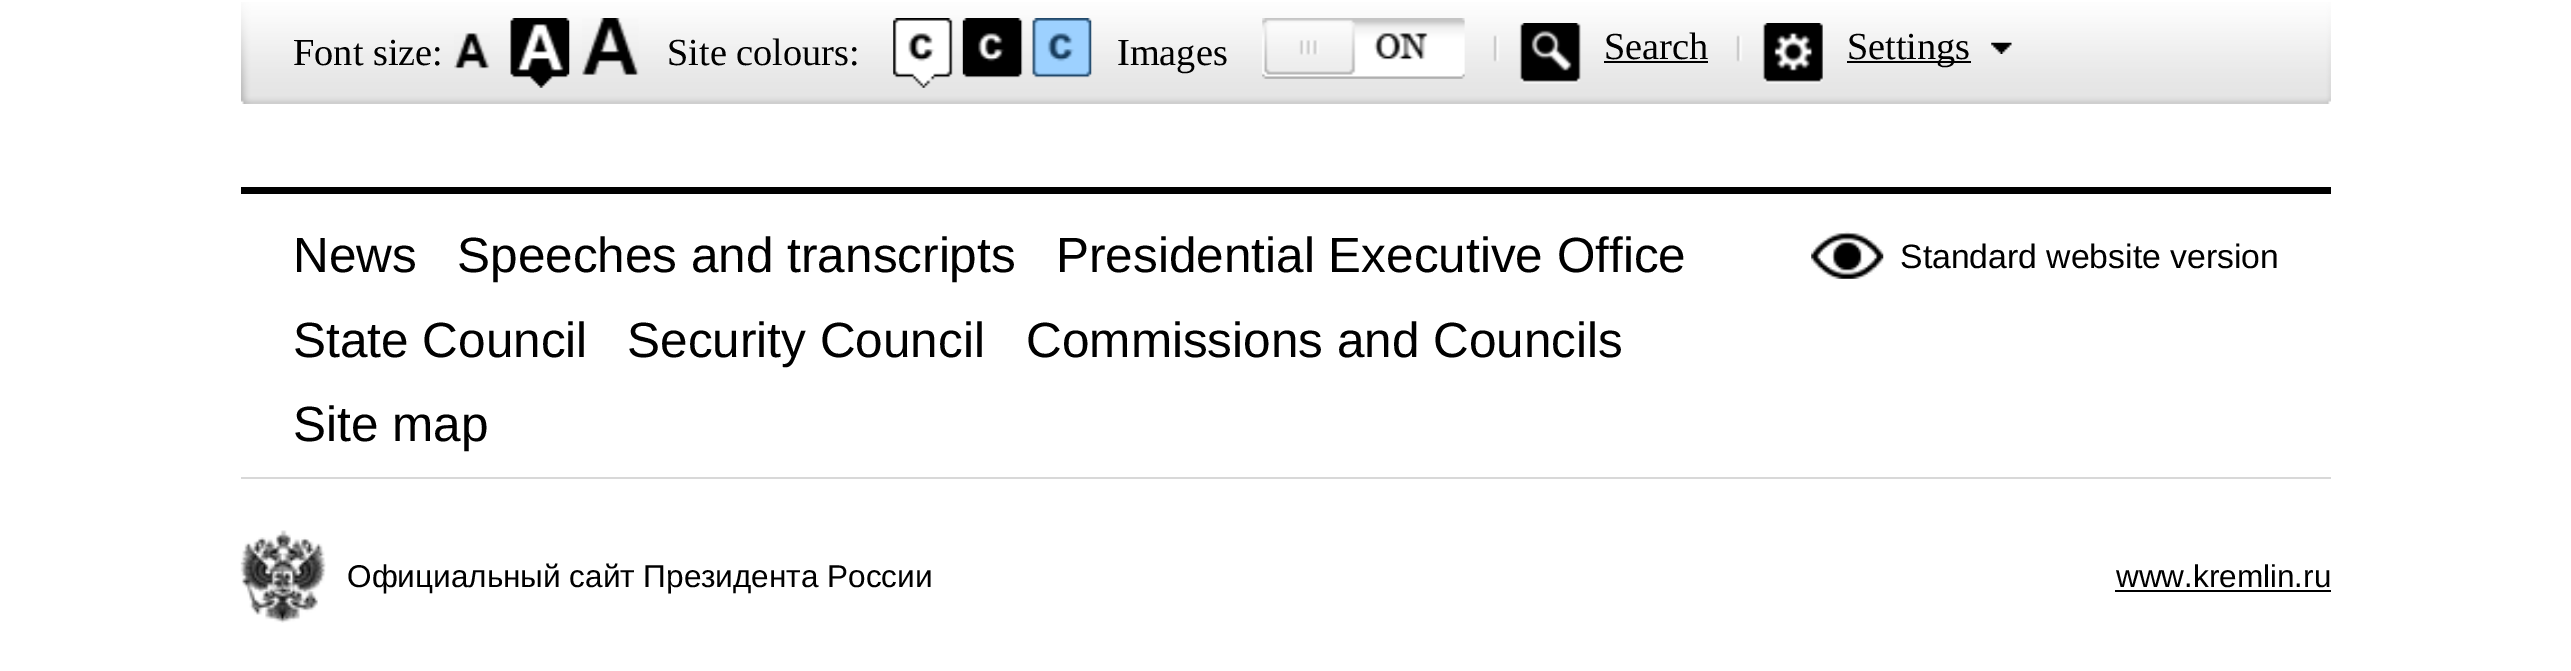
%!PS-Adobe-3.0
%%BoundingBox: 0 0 2571 671
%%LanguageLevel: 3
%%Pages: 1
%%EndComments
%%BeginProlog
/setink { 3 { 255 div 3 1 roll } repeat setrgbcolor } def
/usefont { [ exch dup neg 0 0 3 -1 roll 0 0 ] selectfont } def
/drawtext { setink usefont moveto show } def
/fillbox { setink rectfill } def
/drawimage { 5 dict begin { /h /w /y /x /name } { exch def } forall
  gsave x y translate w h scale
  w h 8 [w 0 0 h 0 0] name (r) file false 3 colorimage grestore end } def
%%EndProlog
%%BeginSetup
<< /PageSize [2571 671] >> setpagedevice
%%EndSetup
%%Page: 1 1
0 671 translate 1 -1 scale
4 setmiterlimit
0 0 2571 671 255 255 255 fillbox
(assets/img1.rgb) 241 2 2090 102 drawimage
(Font size:) 293 65 /LiberationSerif-Regular 38.25 0 0 0 drawtext
(assets/img2.rgb) 454 33 36 36 drawimage
(assets/img3.rgb) 510 18 60 70 drawimage
(assets/img4.rgb) 582 18 57 57 drawimage
(Site colours:) 667 65 /LiberationSerif-Regular 38.25 0 0 0 drawtext
(assets/img5.rgb) 893 18 60 70 drawimage
(assets/img6.rgb) 962 18 61 60 drawimage
(assets/img7.rgb) 1032 18 60 60 drawimage
(Images) 1117 65 /LiberationSerif-Regular 38.25 0 0 0 drawtext
(assets/img8.rgb) 1262 18 203 61 drawimage
(assets/img9.rgb) 1493 23 88 61 drawimage
(Search) 1604 59 /LiberationSerif-Regular 38.25 0 0 0 drawtext
1604 61 104 2 0 0 0 fillbox
(assets/img10.rgb) 1736 23 87 61 drawimage
1847 61 124 2 0 0 0 fillbox
(Settings) 1847 59 /LiberationSerif-Regular 38.25 0 0 0 drawtext
(assets/img11.rgb) 1991 42 21 12 drawimage
241 187 2090 7 0 0 0 fillbox
(News) 293 272 /LiberationSans-Regular 49.5 0 0 0 drawtext
(Speeches and transcripts) 457 272 /LiberationSans-Regular 49.5 0 0 0 drawtext
(Presidential Executive Office) 1056 272 /LiberationSans-Regular 49.5 0 0 0 drawtext
(State Council) 293 357 /LiberationSans-Regular 49.5 0 0 0 drawtext
(Security Council) 627 357 /LiberationSans-Regular 49.5 0 0 0 drawtext
(Commissions and Councils) 1026 357 /LiberationSans-Regular 49.5 0 0 0 drawtext
(Site map) 293 441 /LiberationSans-Regular 49.5 0 0 0 drawtext
(assets/img12.rgb) 1811 231 73 48 drawimage
(Standard website version) 1900 268 /LiberationSans-Regular 33.75 0 0 0 drawtext
241 477 2090 2 216 216 216 fillbox
(assets/img13.rgb) 240 530 86 93 drawimage
(Официальный сайт Президента России) 347 587 /LiberationSans-Regular 31.5 0 0 0 drawtext
(www.kremlin.ru) 2116 587 /LiberationSans-Regular 31.5 0 0 0 drawtext
2115 590 216 2 0 0 0 fillbox
showpage
%%EOF
